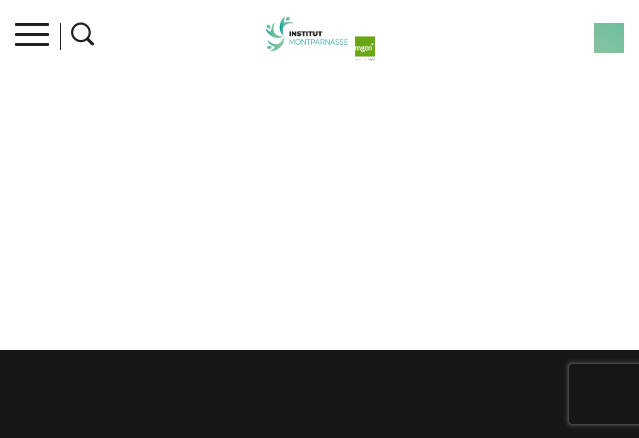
%!PS-Adobe-3.0
%%BoundingBox: 0 0 639 438
%%LanguageLevel: 3
%%Pages: 1
%%EndComments
%%BeginProlog
/setink { 3 { 255 div 3 1 roll } repeat setrgbcolor } def
/fillbox { setink rectfill } def
/setalpha { dup .setfillconstantalpha .setstrokeconstantalpha } def
/rrect { 5 dict begin { /r /h /w /y /x } { exch def } forall
  x r add y moveto x w add y 2 copy h add r arct x w add y h add x 1 index r arct
  x y h add x y r arct x y 2 copy exch w add exch r arct closepath end } def
/softshadow { 12 dict begin { /a /b /q /h /w /y /x } { exch def } forall gsave /was 0 def
  9 -2 -9 { dup b mul 4 div /e exch def 1 sub .425 mul 2.718 exch exp 1 add a .99 .min exch div /now exch def
    1 1 now sub 1 was sub div sub setalpha /was now def
    w h .min e 2 mul add 0 gt { x e sub y e sub w e 2 mul add h e 2 mul add
      q e add b .6 mul add w h .min 2 div e add .min 0 .max rrect fill } if } for grestore end } def
/drawimage { 5 dict begin { /h /w /y /x /name } { exch def } forall
  gsave x y translate w h scale
  w h 8 [w 0 0 h 0 0] name (r) file false 3 colorimage grestore end } def
%%EndProlog
%%BeginSetup
<< /PageSize [639 438] /PageUsesTransparency true >> setpagedevice
%%EndSetup
%%Page: 1 1
0 .pushpdf14devicefilter
0 438 translate 1 -1 scale
4 setmiterlimit
0 0 639 438 255 255 255 fillbox
32 32 32 setink
16.5 23 moveto 32 23 lineto 32 26 lineto 16.5 26 lineto 15.5 26 15 25.5 15 24.5 curveto 15 23.5 15.5 23 16.5 23 curveto closepath fill
32 23 moveto 47.5 23 lineto 48.5 23 49 23.5 49 24.5 curveto 49 25.5 48.5 26 47.5 26 curveto 32 26 lineto closepath fill
16.5 33 moveto 32 33 lineto 32 36 lineto 16.5 36 lineto 15.5 36 15 35.5 15 34.5 curveto 15 33.5 15.5 33 16.5 33 curveto closepath fill
32 33 moveto 47.5 33 lineto 48.5 33 49 33.5 49 34.5 curveto 49 35.5 48.5 36 47.5 36 curveto 32 36 lineto closepath fill
16.5 43 moveto 32 43 lineto 32 46 lineto 16.5 46 lineto 15.5 46 15 45.5 15 44.5 curveto 15 43.5 15.5 43 16.5 43 curveto closepath fill
32 43 moveto 47.5 43 lineto 48.5 43 49 43.5 49 44.5 curveto 49 45.5 48.5 46 47.5 46 curveto 32 46 lineto closepath fill
60 23 1 27 32 32 32 fillbox
(assets/img1.rgb) 71 22 23 24 drawimage
(assets/img2.rgb) 265 16 110 45 drawimage
gsave 594 23 moveto 624 23 lineto 624 53 lineto 594 53 lineto closepath clip newpath
<< /ShadingType 2 /ColorSpace /DeviceRGB /Coords [607 60 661 -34] /Extend [true true] /Function << /FunctionType 3 /Domain [0 1] /Functions [<< /FunctionType 2 /Domain [0 1] /C0 [0.525 0.769 0.624] /C1 [0.525 0.769 0.624] /N 1 >> << /FunctionType 2 /Domain [0 1] /C0 [0.525 0.769 0.624] /C1 [0.278 0.702 0.62] /N 1 >>] /Bounds [0.01] /Encode [0 1 0 1] >> >> shfill grestore
0 350 639 88 22 22 22 fillbox
gsave
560 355 moveto 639 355 lineto 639 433 lineto 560 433 lineto closepath 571 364 moveto 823 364 lineto 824 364 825 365 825 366 curveto 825 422 lineto 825 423 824 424 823 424 curveto 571 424 lineto 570 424 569 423 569 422 curveto 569 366 lineto 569 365 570 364 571 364 curveto closepath eoclip newpath
128 128 128 setink
569 364 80 60 2 2.5 1 softshadow
grestore
.poppdf14devicefilter showpage
%%EOF
